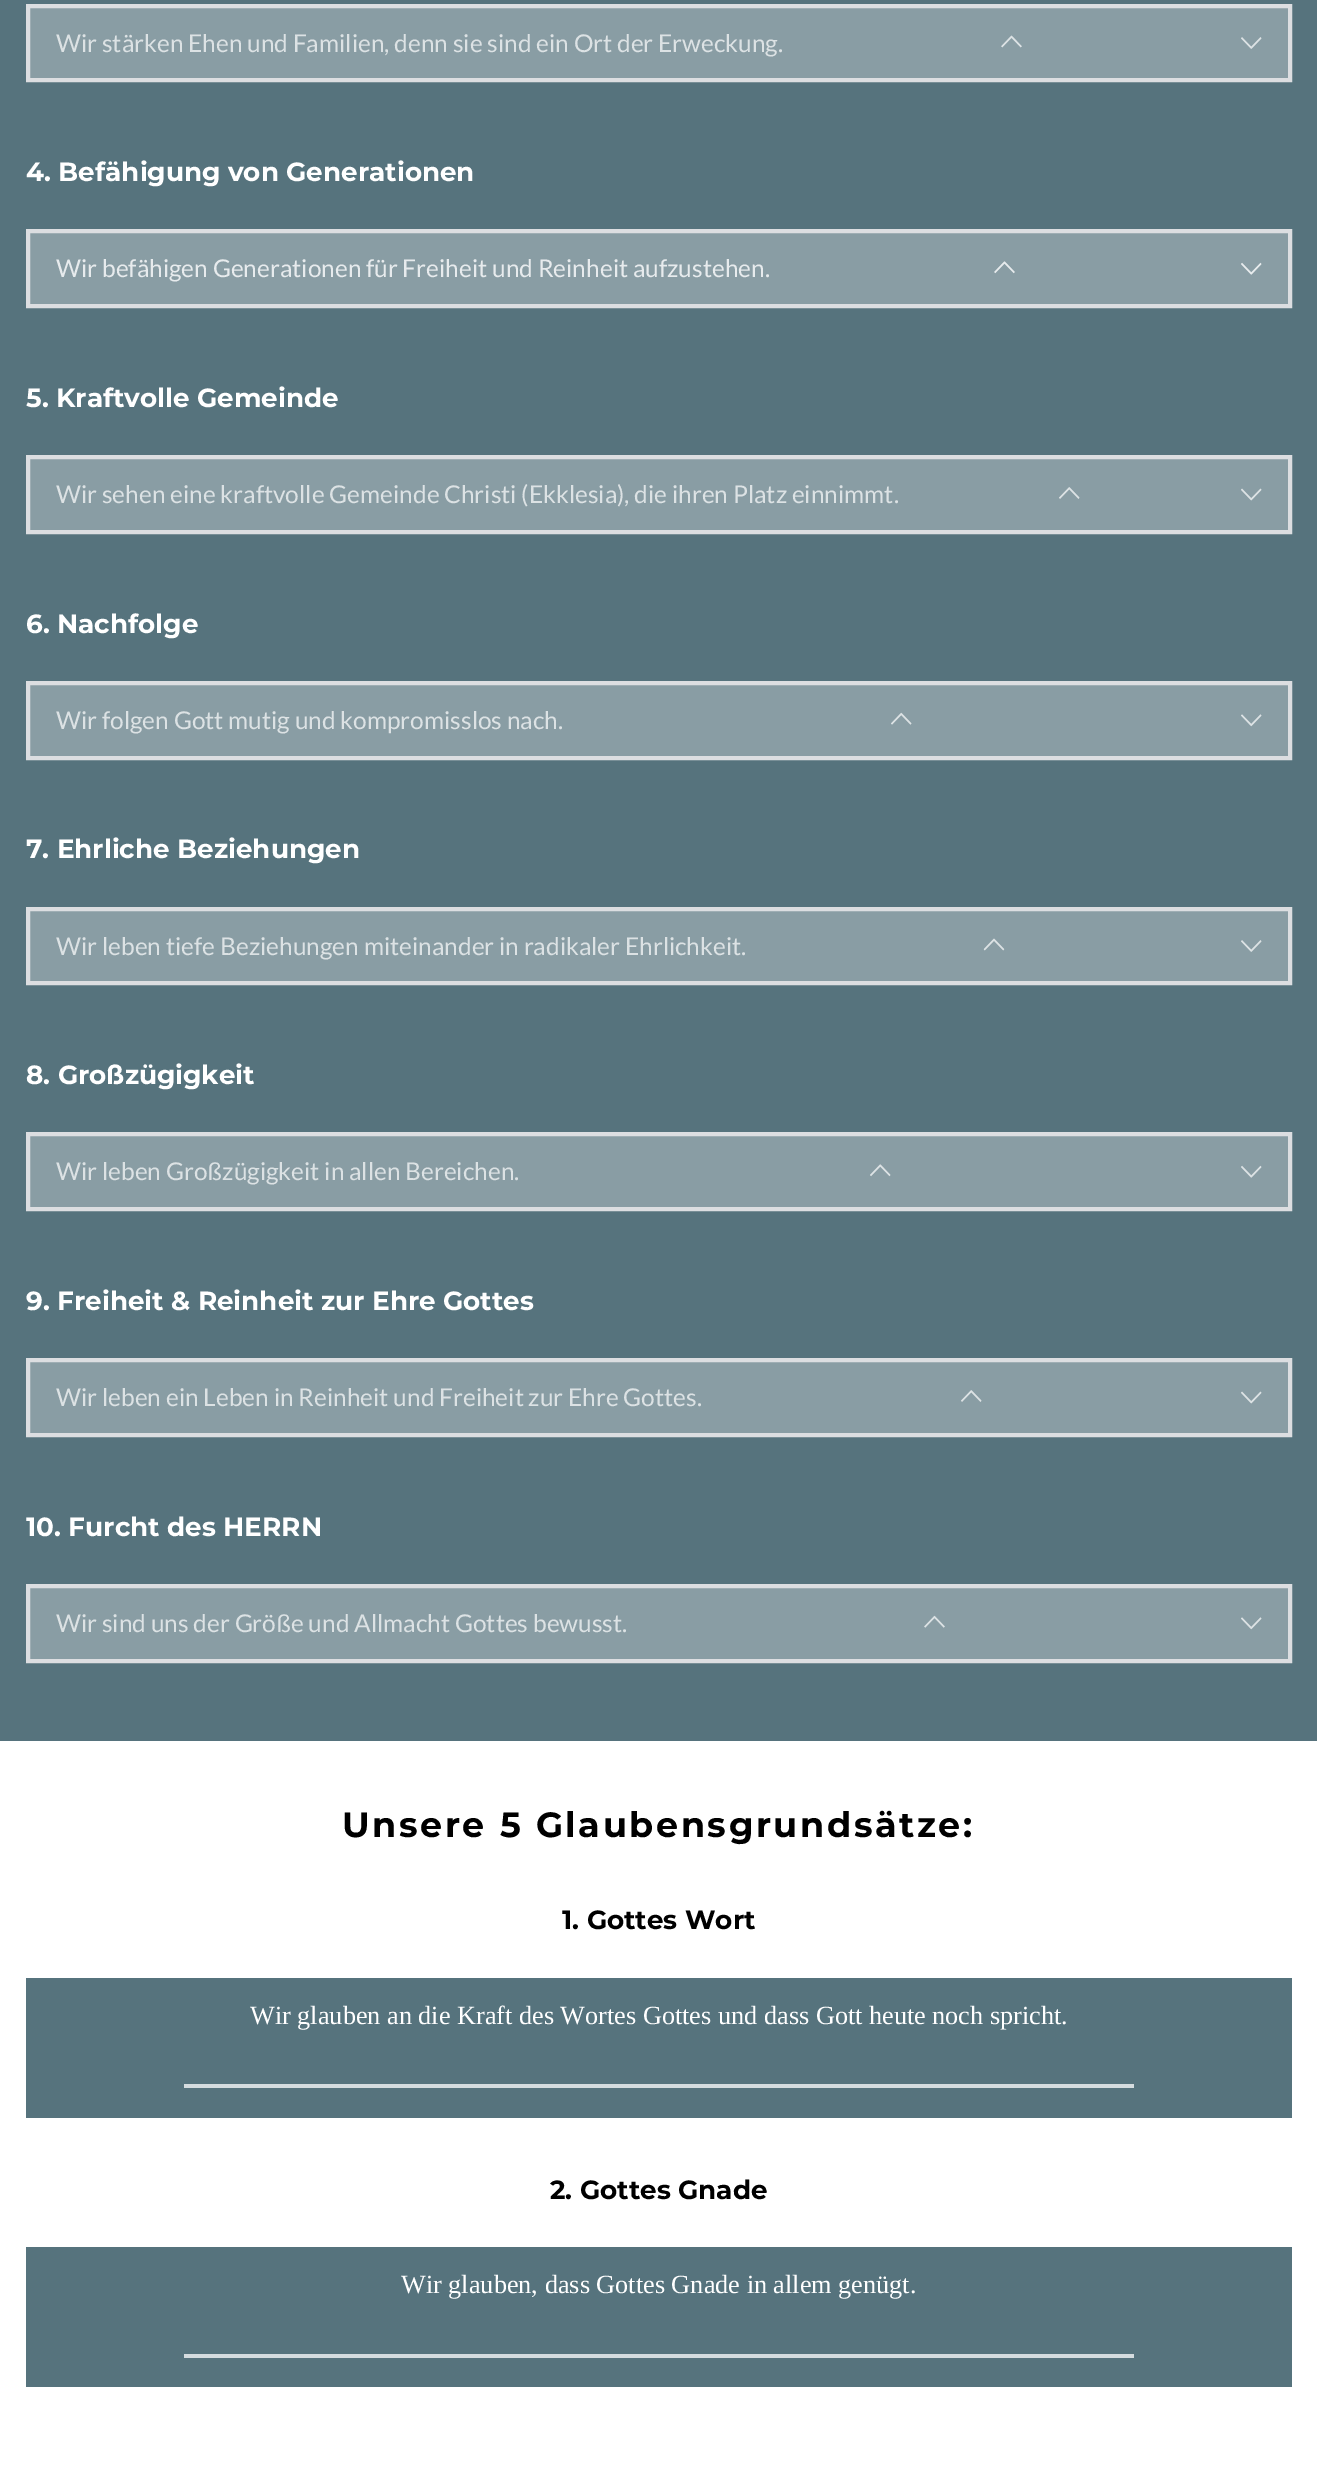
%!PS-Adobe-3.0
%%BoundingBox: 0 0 1317 2467
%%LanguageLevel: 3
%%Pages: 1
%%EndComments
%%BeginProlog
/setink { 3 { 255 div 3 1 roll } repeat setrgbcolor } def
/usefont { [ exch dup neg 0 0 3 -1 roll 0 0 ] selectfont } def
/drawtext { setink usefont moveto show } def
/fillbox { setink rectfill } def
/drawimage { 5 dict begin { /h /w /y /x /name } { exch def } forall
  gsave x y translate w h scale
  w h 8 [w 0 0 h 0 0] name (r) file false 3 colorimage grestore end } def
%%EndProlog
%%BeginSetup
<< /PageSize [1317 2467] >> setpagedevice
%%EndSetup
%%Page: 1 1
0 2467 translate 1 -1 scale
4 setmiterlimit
0 0 1317 2467 255 255 255 fillbox
0 0 1317 1741 86 115 125 fillbox
137 157 164 setink
28 6 moveto 1290 6 lineto 1290 80 lineto 28 80 lineto closepath gsave fill grestore
220 222 225 setink
4 setlinewidth
stroke
(Wir stärken Ehen und Familien, denn sie sind ein Ort der Erweckung.) 56 52 /Lato-Regular 24.5 220 226 228 drawtext
(assets/img1.rgb) 1001 35 21 13 drawimage
(assets/img2.rgb) 1241 37 21 12 drawimage
(4. Befähigung von Generationen) 26 181 /Montserrat-Bold 26.25 255 255 255 drawtext
137 157 164 setink
28 231 moveto 1290 231 lineto 1290 306 lineto 28 306 lineto closepath gsave fill grestore
220 222 225 setink
stroke
(Wir befähigen Generationen für Freiheit und Reinheit aufzustehen.) 56 277 /Lato-Regular 24.5 231 235 237 drawtext
(assets/img3.rgb) 994 261 21 13 drawimage
(assets/img4.rgb) 1241 262 21 13 drawimage
(5. Kraftvolle Gemeinde) 26 407 /Montserrat-Bold 26.25 255 255 255 drawtext
137 157 164 setink
28 457 moveto 1290 457 lineto 1290 532 lineto 28 532 lineto closepath gsave fill grestore
220 222 225 setink
stroke
(Wir sehen eine kraftvolle Gemeinde Christi \(Ekklesia\), die ihren Platz einnimmt.) 56 503 /Lato-Regular 24.5 220 226 228 drawtext
(assets/img5.rgb) 1059 487 21 12 drawimage
(assets/img6.rgb) 1241 488 21 13 drawimage
(6. Nachfolge) 26 633 /Montserrat-Bold 26.25 255 255 255 drawtext
137 157 164 setink
28 683 moveto 1290 683 lineto 1290 758 lineto 28 758 lineto closepath gsave fill grestore
220 222 225 setink
stroke
(Wir folgen Gott mutig und kompromisslos nach.) 56 729 /Lato-Regular 24.5 220 226 228 drawtext
(assets/img7.rgb) 891 712 21 13 drawimage
(assets/img8.rgb) 1241 714 21 13 drawimage
(7. Ehrliche Beziehungen) 26 858 /Montserrat-Bold 26.25 255 255 255 drawtext
137 157 164 setink
28 909 moveto 1290 909 lineto 1290 983 lineto 28 983 lineto closepath gsave fill grestore
220 222 225 setink
stroke
(Wir leben tiefe Beziehungen miteinander in radikaler Ehrlichkeit.) 56 955 /Lato-Regular 24.5 220 226 228 drawtext
(assets/img9.rgb) 983 938 22 13 drawimage
(assets/img2.rgb) 1241 940 21 12 drawimage
(8. Großzügigkeit) 26 1084 /Montserrat-Bold 26.25 255 255 255 drawtext
137 157 164 setink
28 1134 moveto 1290 1134 lineto 1290 1209 lineto 28 1209 lineto closepath gsave fill grestore
220 222 225 setink
stroke
(Wir leben Großzügigkeit in allen Bereichen.) 56 1180 /Lato-Regular 24.5 220 226 228 drawtext
(assets/img10.rgb) 870 1164 21 13 drawimage
(assets/img11.rgb) 1241 1165 21 13 drawimage
(9. Freiheit & Reinheit zur Ehre Gottes) 26 1310 /Montserrat-Bold 26.25 255 255 255 drawtext
137 157 164 setink
28 1360 moveto 1290 1360 lineto 1290 1435 lineto 28 1435 lineto closepath gsave fill grestore
220 222 225 setink
stroke
(Wir leben ein Leben in Reinheit und Freiheit zur Ehre Gottes.) 56 1406 /Lato-Regular 24.5 220 226 228 drawtext
(assets/img5.rgb) 961 1390 21 12 drawimage
(assets/img6.rgb) 1241 1391 21 13 drawimage
(10. Furcht des HERRN) 26 1536 /Montserrat-Bold 26.25 255 255 255 drawtext
137 157 164 setink
28 1586 moveto 1290 1586 lineto 1290 1661 lineto 28 1661 lineto closepath gsave fill grestore
220 222 225 setink
stroke
(Wir sind uns der Größe und Allmacht Gottes bewusst.) 56 1632 /Lato-Regular 24.5 220 226 228 drawtext
(assets/img12.rgb) 924 1615 21 13 drawimage
(assets/img13.rgb) 1241 1617 21 13 drawimage
/Montserrat-Bold 35 usefont
0 0 0 setink
342 1837 moveto 2.6 0 (Unsere 5 Glaubensgrundsätze:) ashow
(1. Gottes Wort) 562 1929 /Montserrat-Bold 26.25 0 0 0 drawtext
26 1978 1266 140 86 115 125 fillbox
(Wir glauben an die Kraft des Wortes Gottes und dass Gott heute noch spricht.) 250 2024 /LiberationSerif-Regular 26.25 255 255 255 drawtext
184 2084 950 4 213 220 223 fillbox
(2. Gottes Gnade) 550 2199 /Montserrat-Bold 26.25 0 0 0 drawtext
26 2247 1266 140 86 115 125 fillbox
(Wir glauben, dass Gottes Gnade in allem genügt.) 401 2293 /LiberationSerif-Regular 26.25 255 255 255 drawtext
184 2354 950 4 213 220 223 fillbox
showpage
%%EOF
